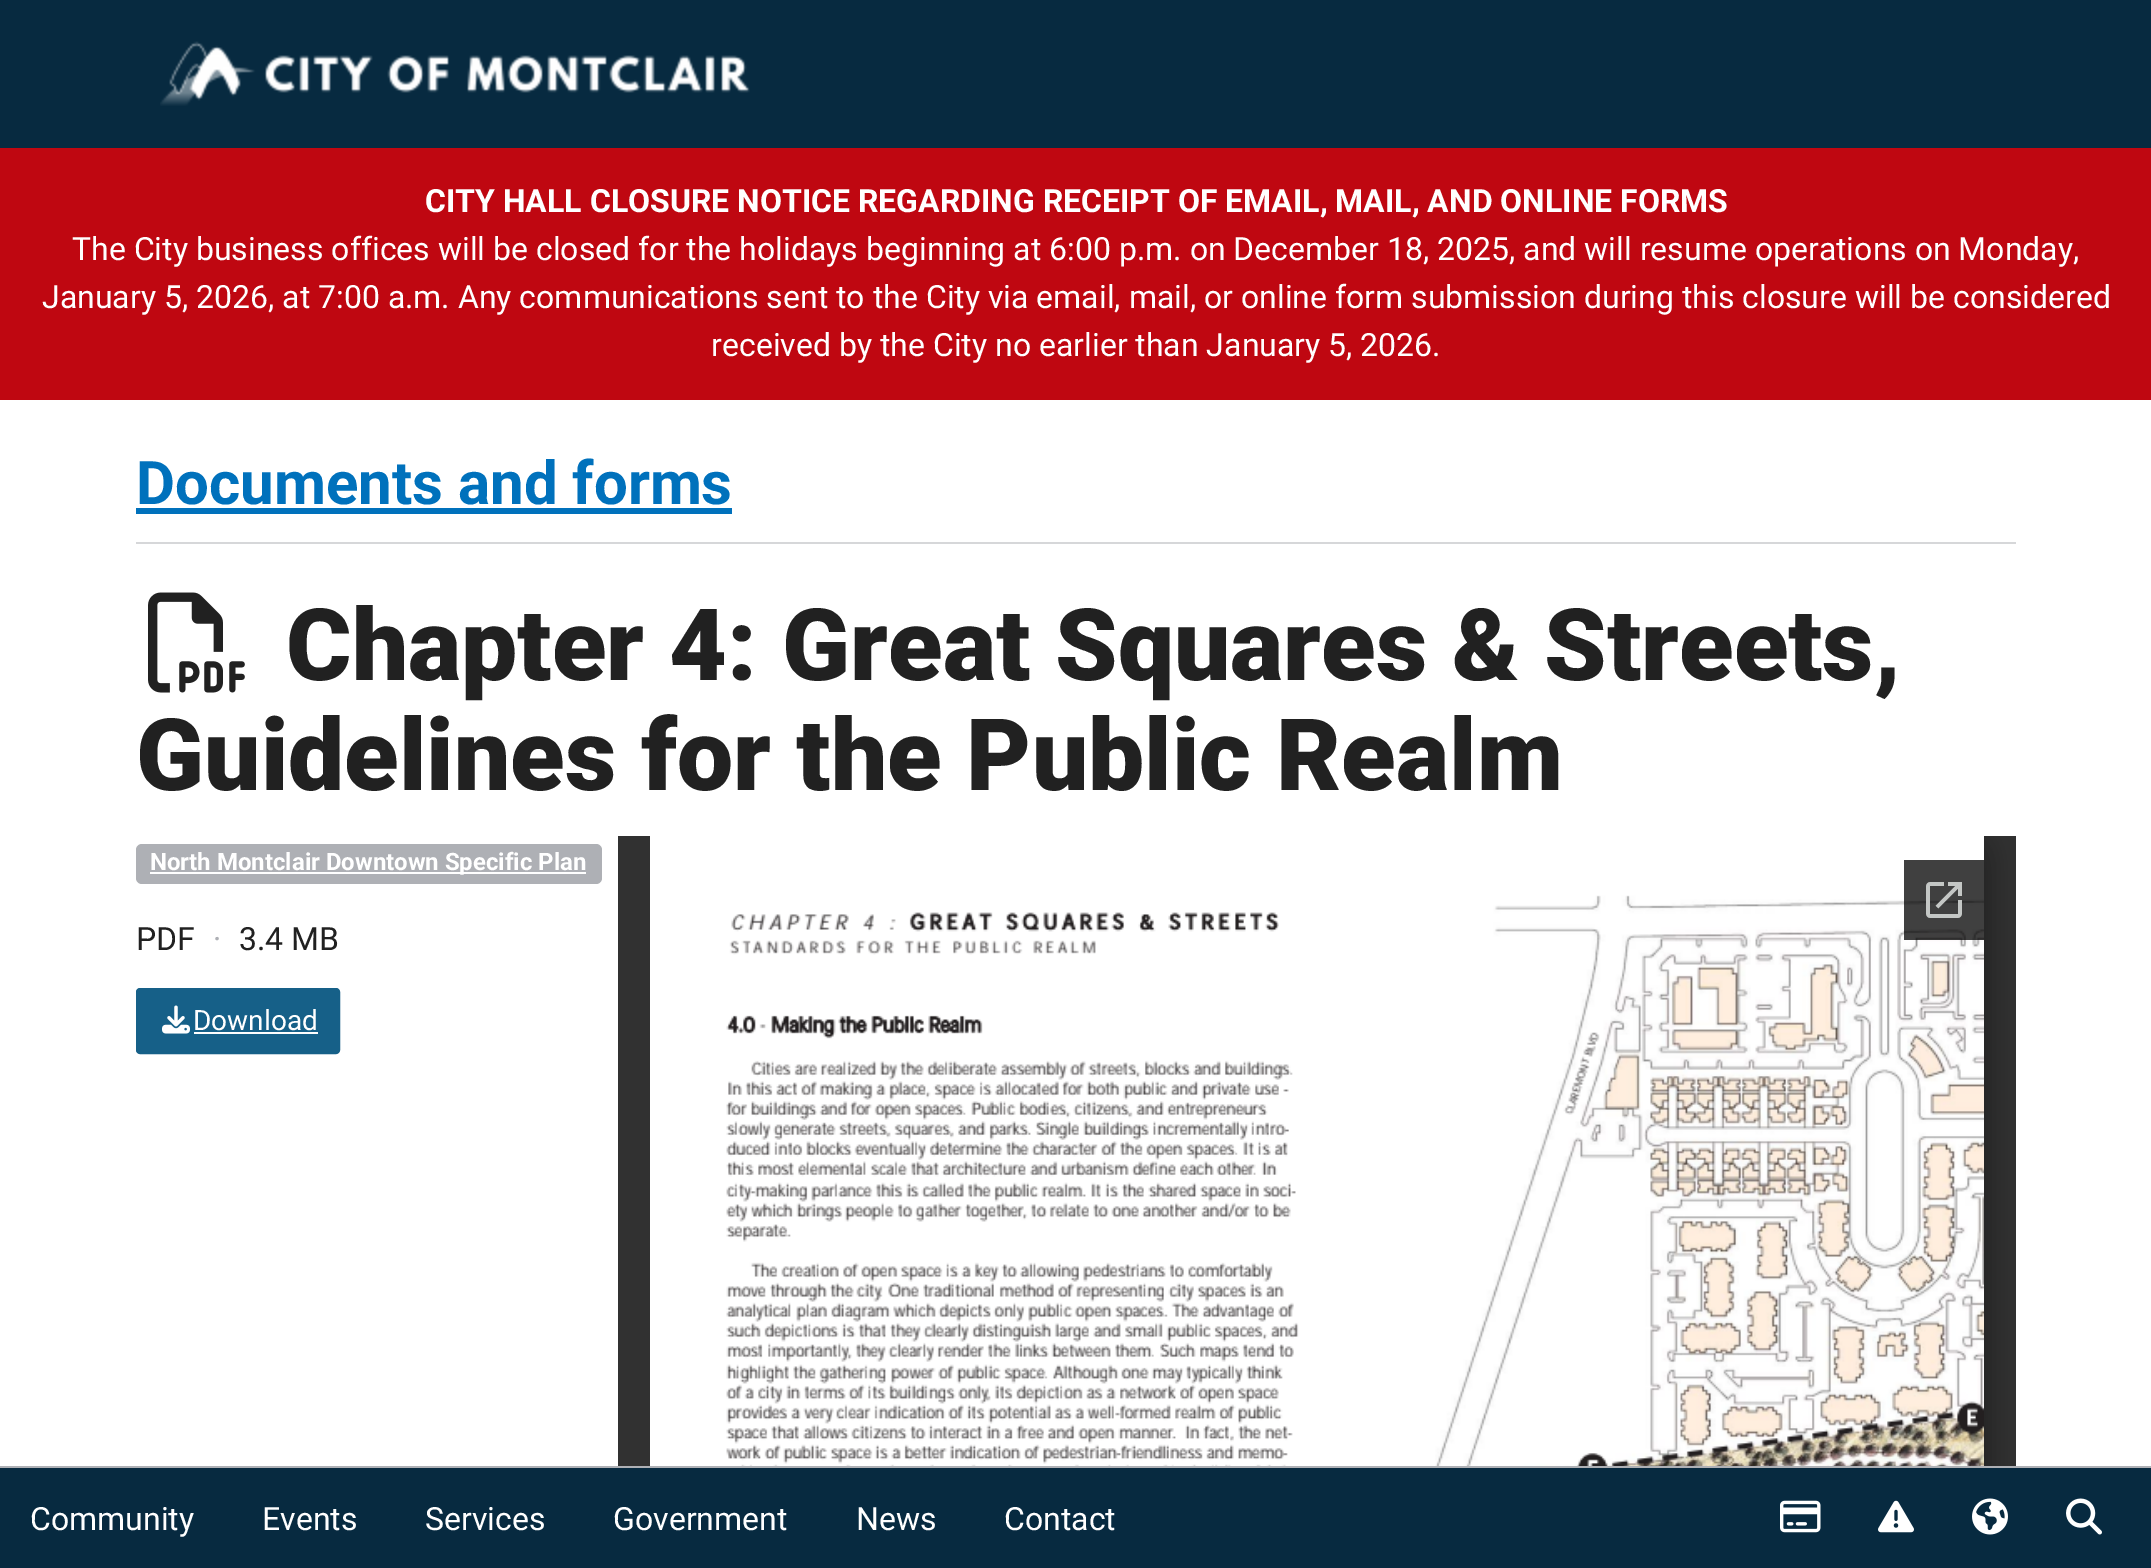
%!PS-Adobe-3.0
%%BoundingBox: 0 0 2151 1568
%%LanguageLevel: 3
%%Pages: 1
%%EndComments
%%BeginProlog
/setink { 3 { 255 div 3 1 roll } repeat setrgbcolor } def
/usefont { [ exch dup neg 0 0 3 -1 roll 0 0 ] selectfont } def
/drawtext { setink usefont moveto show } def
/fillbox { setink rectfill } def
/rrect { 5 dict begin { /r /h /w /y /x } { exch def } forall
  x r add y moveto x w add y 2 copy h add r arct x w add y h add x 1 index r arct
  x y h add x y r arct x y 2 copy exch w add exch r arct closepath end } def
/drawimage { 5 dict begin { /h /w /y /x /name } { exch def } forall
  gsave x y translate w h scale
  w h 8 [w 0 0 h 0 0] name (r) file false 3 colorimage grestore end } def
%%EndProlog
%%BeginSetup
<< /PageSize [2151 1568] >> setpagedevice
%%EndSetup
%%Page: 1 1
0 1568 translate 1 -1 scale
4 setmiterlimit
0 0 2151 1568 255 255 255 fillbox
0 148 2151 252 191 7 17 fillbox
(CITY HALL CLOSURE NOTICE REGARDING RECEIPT OF EMAIL, MAIL, AND ONLINE FORMS) 425 212 /Roboto-Bold 32 255 255 255 drawtext
(The City business offices will be closed for the holidays beginning at 6:00 p.m. on December 18, 2025, and will resume operations on Monday,) 72 260 /Roboto-Regular 32 255 255 255 drawtext
(January 5, 2026, at 7:00 a.m. Any communications sent to the City via email, mail, or online form submission during this closure will be considered) 42 308 /Roboto-Regular 32 255 255 255 drawtext
(received by the City no earlier than January 5, 2026.) 711 356 /Roboto-Regular 32 255 255 255 drawtext
136 542 1880 2 214 215 217 fillbox
(Documents and forms) 136 504 /Roboto-Bold 60 0 113 188 drawtext
136 508 596 6 0 113 188 fillbox
(assets/img1.rgb) 148 592 97 101 drawimage
(Chapter 4: Great Squares & Streets,) 286 680 /Roboto-Black 100 33 33 33 drawtext
(Guidelines for the Public Realm) 136 790 /Roboto-Black 100 33 33 33 drawtext
174 176 181 setink
136 844 466 40 6 rrect fill
150 872 436 2 255 255 255 fillbox
(North Montclair Downtown Specific Plan) 150 870 /Roboto-Bold 24 255 255 255 drawtext
(PDF) 136 950 /Roboto-Regular 32 33 33 33 drawtext
(·) 213 950 /Roboto-Regular 32 174 176 181 drawtext
(3.4 MB) 239 950 /Roboto-Regular 32 33 33 33 drawtext
22 96 136 setink
137 989 202 64 3 rrect gsave fill grestore
2 setlinewidth
stroke
(assets/img2.rgb) 162 1005 28 29 drawimage
(Download) 193 1030 /Roboto-Regular 28 255 255 255 drawtext
194 1032 124 2 255 255 255 fillbox
(assets/img3.rgb) 618 836 1398 630 drawimage
0 0 2151 148 7 42 64 fillbox
(assets/img4.rgb) 160 41 590 65 drawimage
0 1468 2151 100 7 42 64 fillbox
0 1466 2151 2 174 176 181 fillbox
(Community) 30 1530 /Roboto-Regular 32 255 255 255 drawtext
(Events) 262 1530 /Roboto-Regular 32 255 255 255 drawtext
(Services) 425 1530 /Roboto-Regular 32 255 255 255 drawtext
(Government) 613 1530 /Roboto-Regular 32 255 255 255 drawtext
(News) 856 1530 /Roboto-Regular 32 255 255 255 drawtext
(Contact) 1004 1530 /Roboto-Regular 32 255 255 255 drawtext
(assets/img5.rgb) 1780 1500 41 33 drawimage
(assets/img6.rgb) 1878 1500 36 33 drawimage
(assets/img7.rgb) 1972 1498 36 37 drawimage
(assets/img8.rgb) 2066 1498 36 37 drawimage
showpage
%%EOF
